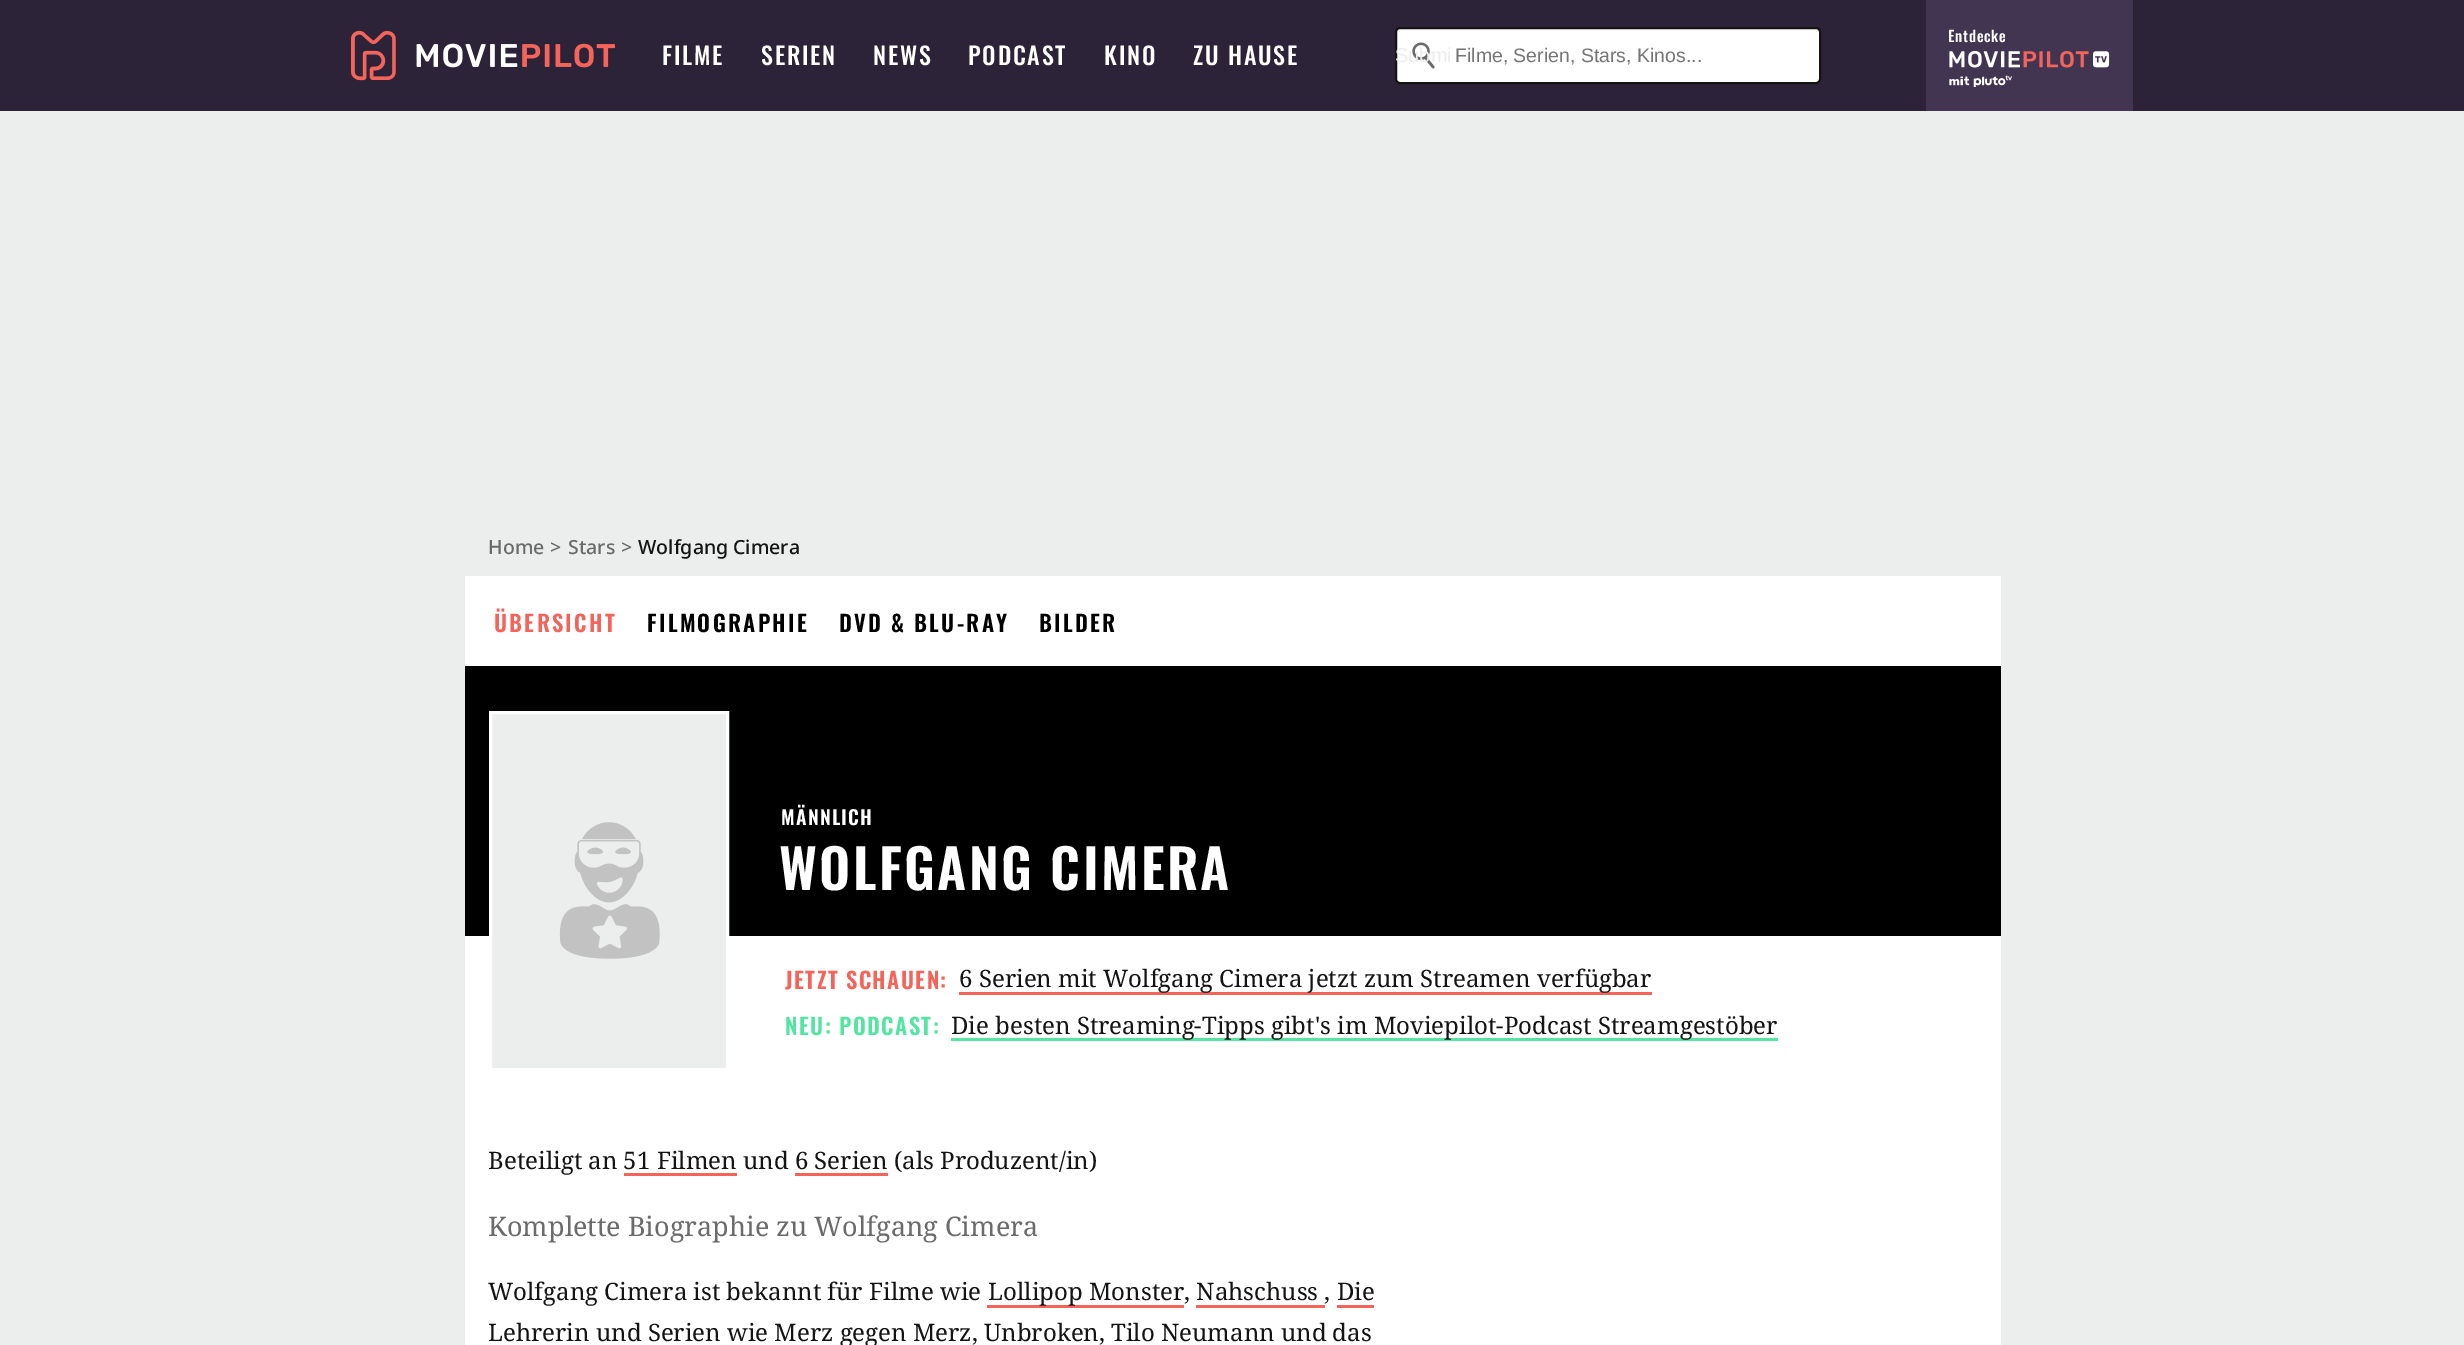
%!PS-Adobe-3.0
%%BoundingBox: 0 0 2464 1345
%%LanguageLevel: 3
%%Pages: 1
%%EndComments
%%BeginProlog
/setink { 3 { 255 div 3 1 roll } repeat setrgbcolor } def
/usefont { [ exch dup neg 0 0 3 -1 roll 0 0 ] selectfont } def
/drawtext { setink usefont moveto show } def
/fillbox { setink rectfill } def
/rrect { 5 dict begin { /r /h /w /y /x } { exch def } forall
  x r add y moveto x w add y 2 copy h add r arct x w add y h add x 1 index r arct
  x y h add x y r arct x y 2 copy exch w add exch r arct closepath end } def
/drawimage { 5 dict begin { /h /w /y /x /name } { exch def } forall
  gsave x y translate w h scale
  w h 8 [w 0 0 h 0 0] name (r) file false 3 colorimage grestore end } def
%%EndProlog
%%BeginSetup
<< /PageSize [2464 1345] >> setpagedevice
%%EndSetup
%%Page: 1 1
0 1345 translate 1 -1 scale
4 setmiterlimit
0 0 2464 1345 236 237 237 fillbox
0 0 2464 111 45 35 56 fillbox
(assets/img1.rgb) 351 30 264 51 drawimage
/Oswald-Medium 24 usefont
255 255 255 setink
662 65 moveto 1.75 0 (FILME) ashow
761 65 moveto 1.75 0 (SERIEN) ashow
873 65 moveto 1.75 0 (NEWS) ashow
968 65 moveto 1.75 0 (PODCAST) ashow
1104 65 moveto 1.75 0 (KINO) ashow
1193 65 moveto 1.75 0 (ZU HAUSE) ashow
1396 28 424 55 4 rrect gsave fill grestore
20 20 20 setink
2 setlinewidth
stroke
(assets/img2.rgb) 1412 42 23 27 drawimage
(Submi) 1395 62 /LiberationSans-Regular 20 237 237 237 drawtext
(Filme, Serien, Stars, Kinos...) 1455 62 /LiberationSans-Regular 19.5 117 117 117 drawtext
1926 0 207 111 66 53 81 fillbox
/Oswald-Medium 15 usefont
255 255 255 setink
1948 42 moveto 0.75 0 (Entdecke) ashow
(assets/img3.rgb) 1949 51 161 36 drawimage
(Home) 488 554 /NotoSans-Medium 19.5 107 107 107 drawtext
(>) 550 554 /NotoSans-Medium 19.5 107 107 107 drawtext
(Stars) 568 554 /NotoSans-Medium 19.5 107 107 107 drawtext
(>) 621 554 /NotoSans-Medium 19.5 107 107 107 drawtext
(Wolfgang Cimera) 638 554 /NotoSans-Medium 19.5 20 20 20 drawtext
465 576 1536 769 255 255 255 fillbox
/Oswald-SemiBold 22.5 usefont
244 100 90 setink
494 632 moveto 2.25 0 (ÜBERSICHT) ashow
0 0 0 setink
647 632 moveto 2.25 0 (FILMOGRAPHIE) ashow
839 632 moveto 2.25 0 (DVD & BLU-RAY) ashow
1039 632 moveto 2.25 0 (BILDER) ashow
465 666 1536 270 0 0 0 fillbox
236 237 237 setink
490.5 712.5 moveto 727.5 712.5 lineto 727.5 1069.5 lineto 490.5 1069.5 lineto closepath gsave fill grestore
255 255 255 setink
3 setlinewidth
stroke
(assets/img4.rgb) 559 822 101 137 drawimage
/Oswald-SemiBold 19.5 usefont
781 825 moveto 1.25 0 (MÄNNLICH) ashow
/Oswald-SemiBold 54 usefont
779 890 moveto 2.4 0 (WOLFGANG CIMERA) ashow
/Oswald-SemiBold 22.5 usefont
244 100 90 setink
785 989 moveto 1.4 0 (JETZT SCHAUEN:) ashow
959 992 693 3 244 100 90 fillbox
(6 Serien mit Wolfgang Cimera jetzt zum Streamen verfügbar) 959 987 /NotoSerif-Regular 24 20 20 20 drawtext
/Oswald-SemiBold 22.5 usefont
84 229 162 setink
785 1035 moveto 1.4 0 (NEU: PODCAST:) ashow
951 1038 827 3 84 229 162 fillbox
(Die besten Streaming-Tipps gibt's im Moviepilot-Podcast Streamgestöber) 951 1034 /NotoSerif-Regular 24 20 20 20 drawtext
(Beteiligt an 51 Filmen und 6 Serien \(als Produzent/in\)) 488 1169 /NotoSerif-Regular 24 20 20 20 drawtext
624 1173 113 3 244 100 90 fillbox
795 1173 93 3 244 100 90 fillbox
(Komplette Biographie zu Wolfgang Cimera) 488 1236 /NotoSerif-Regular 27 107 107 107 drawtext
(Wolfgang Cimera ist bekannt für Filme wie) 488 1300 /NotoSerif-Regular 24 20 20 20 drawtext
987 1305 197 3 244 100 90 fillbox
(Lollipop Monster, Nahschuss , Die) 988 1300 /NotoSerif-Regular 24 20 20 20 drawtext
1196 1305 129 3 244 100 90 fillbox
(Lehrerin und Serien wie Merz gegen Merz, Unbroken, Tilo Neumann und das) 488 1341 /NotoSerif-Regular 24 20 20 20 drawtext
1337 1305 37 3 244 100 90 fillbox
showpage
%%EOF
